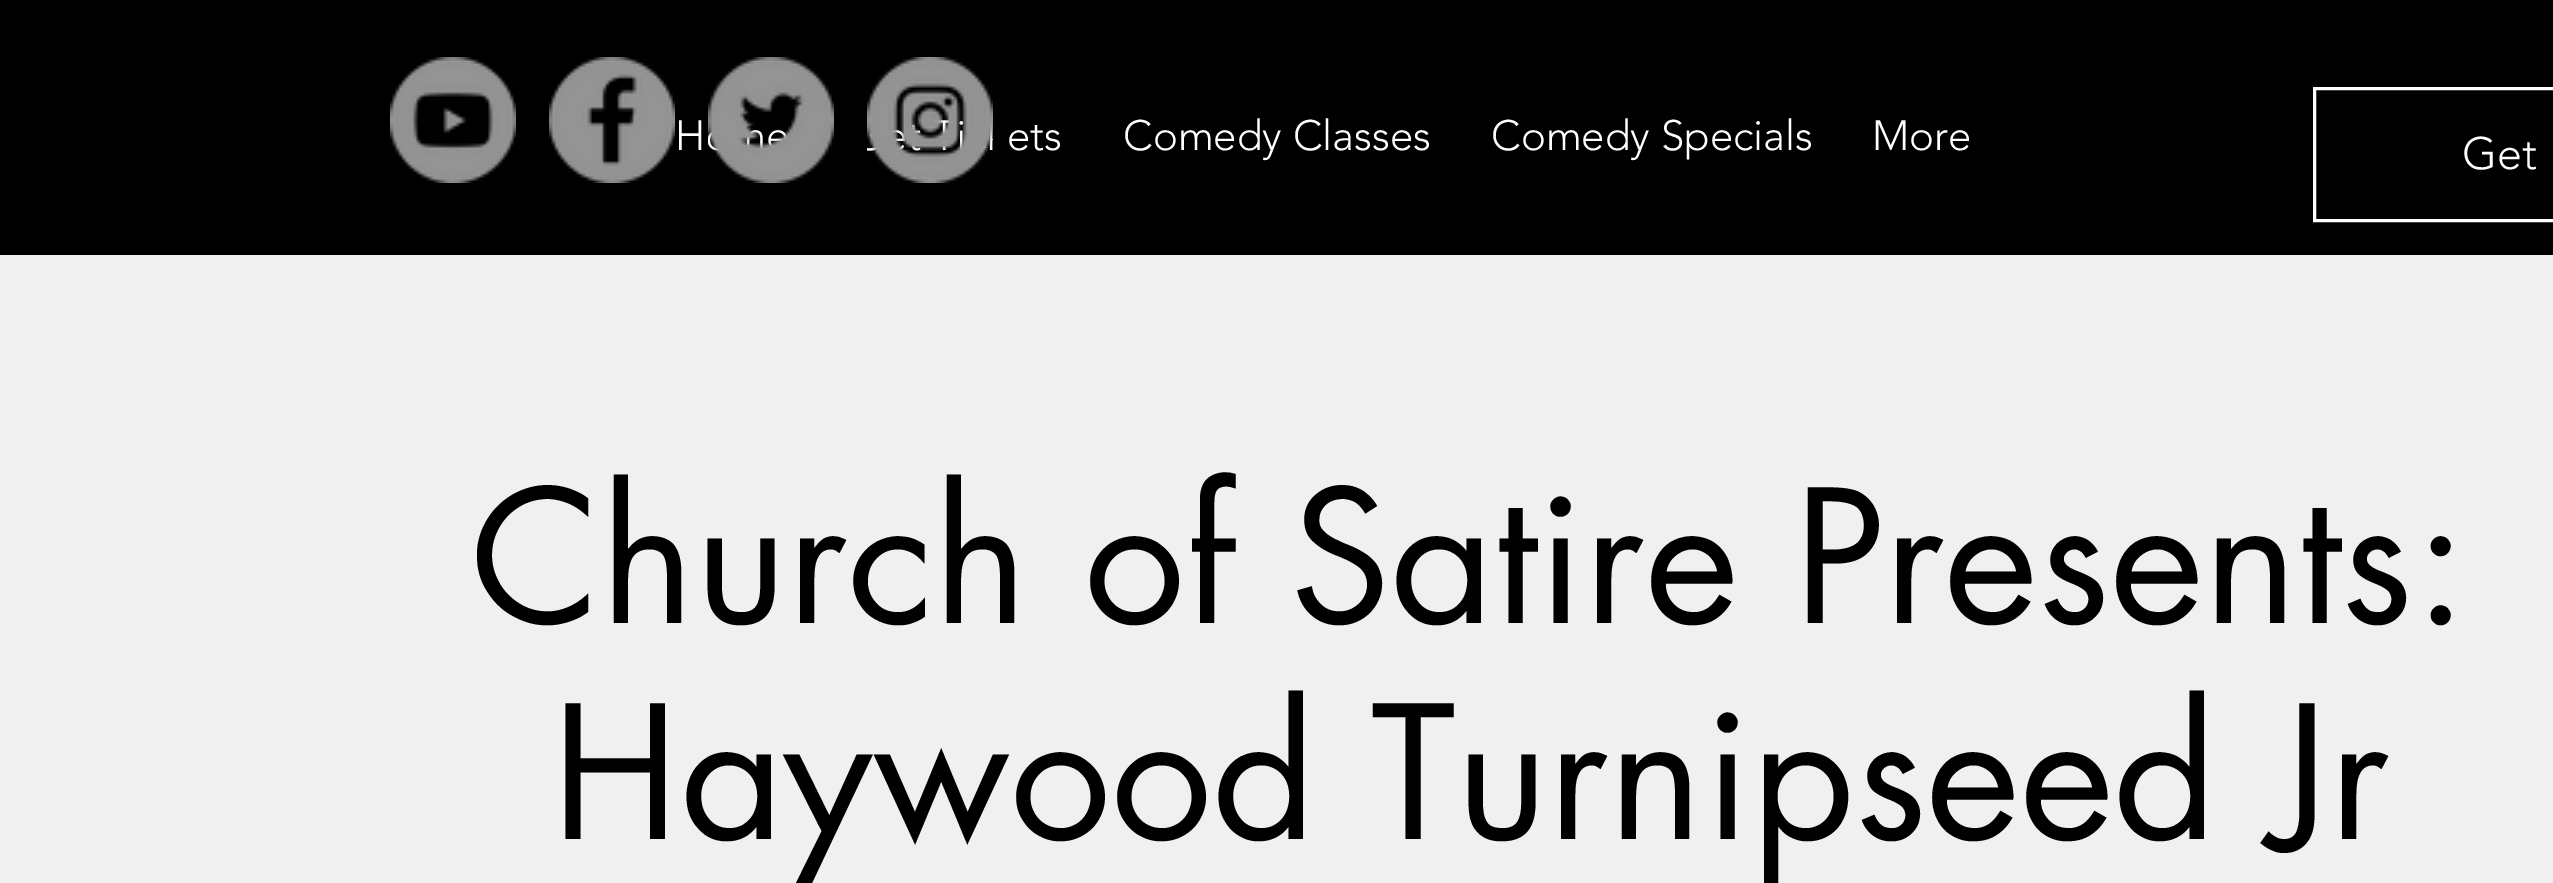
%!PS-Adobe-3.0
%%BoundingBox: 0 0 2553 883
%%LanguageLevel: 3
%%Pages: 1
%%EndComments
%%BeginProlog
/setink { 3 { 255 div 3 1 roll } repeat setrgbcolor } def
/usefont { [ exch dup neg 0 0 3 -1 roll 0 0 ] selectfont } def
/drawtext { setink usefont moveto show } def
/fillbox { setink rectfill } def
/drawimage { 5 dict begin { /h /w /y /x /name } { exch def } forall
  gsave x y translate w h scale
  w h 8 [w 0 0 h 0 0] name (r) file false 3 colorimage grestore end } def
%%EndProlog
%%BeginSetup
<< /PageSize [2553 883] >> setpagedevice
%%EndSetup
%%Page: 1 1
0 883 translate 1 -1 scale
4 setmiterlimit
0 0 2553 883 0 0 0 fillbox
(assets/img1.rgb) 390 57 126 126 drawimage
(assets/img2.rgb) 549 57 126 126 drawimage
(assets/img3.rgb) 708 57 126 126 drawimage
(assets/img4.rgb) 867 57 126 126 drawimage
(H) 675 150 /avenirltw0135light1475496-Light 42 255 255 255 drawtext
(ets) 1007 150 /avenirltw0135light1475496-Light 42 255 255 255 drawtext
(Comedy Classes) 1123 150 /avenirltw0135light1475496-Light 42 255 255 255 drawtext
(Comedy Specials) 1491 150 /avenirltw0135light1475496-Light 42 255 255 255 drawtext
(More) 1872 150 /avenirltw0135light1475496-Light 42 255 255 255 drawtext
3 setlinewidth
2314.5 88.5 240 132 rectstroke
(Get) 2462 169 /avenirltw0135light1475496-Light 45 255 255 255 drawtext
0 255 2553 628 239 240 239 fillbox
(Church of Satire Presents:) 471 623 /futura-Regular 180 0 0 0 drawtext
(Haywood Turnipseed Jr) 551 839 /futura-Regular 180 0 0 0 drawtext
showpage
%%EOF
